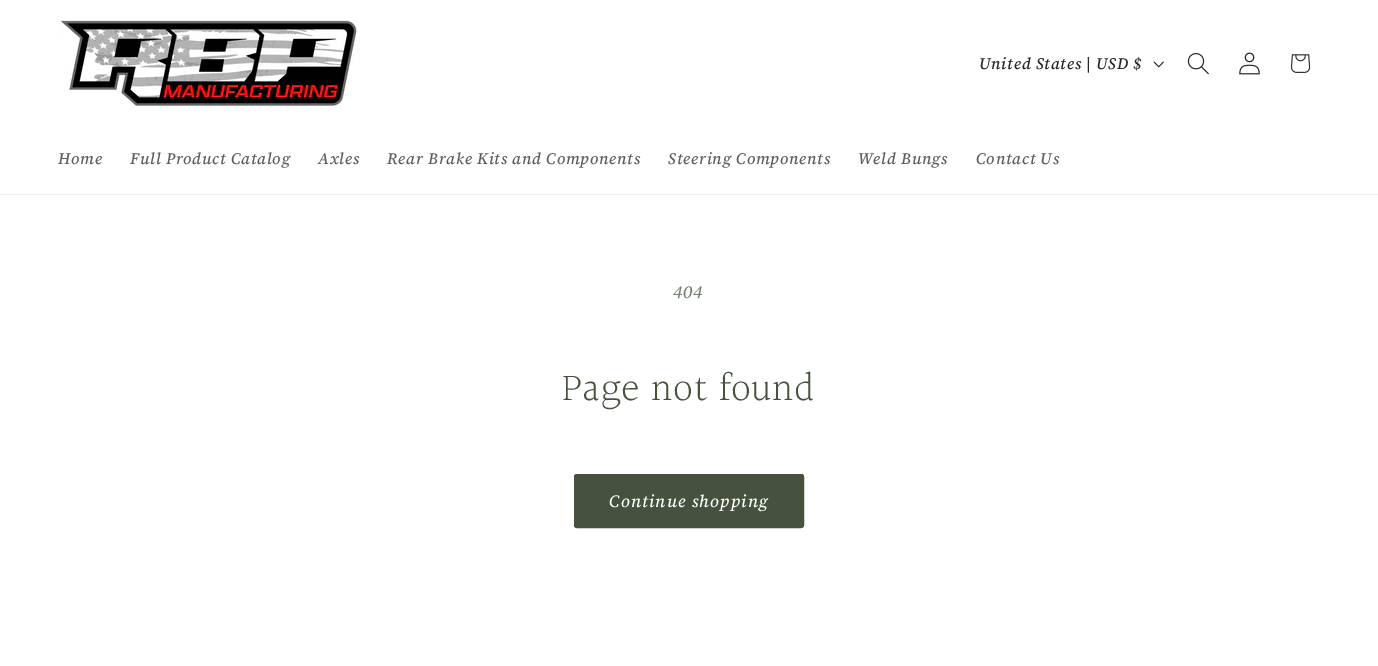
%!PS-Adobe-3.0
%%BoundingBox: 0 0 1378 666
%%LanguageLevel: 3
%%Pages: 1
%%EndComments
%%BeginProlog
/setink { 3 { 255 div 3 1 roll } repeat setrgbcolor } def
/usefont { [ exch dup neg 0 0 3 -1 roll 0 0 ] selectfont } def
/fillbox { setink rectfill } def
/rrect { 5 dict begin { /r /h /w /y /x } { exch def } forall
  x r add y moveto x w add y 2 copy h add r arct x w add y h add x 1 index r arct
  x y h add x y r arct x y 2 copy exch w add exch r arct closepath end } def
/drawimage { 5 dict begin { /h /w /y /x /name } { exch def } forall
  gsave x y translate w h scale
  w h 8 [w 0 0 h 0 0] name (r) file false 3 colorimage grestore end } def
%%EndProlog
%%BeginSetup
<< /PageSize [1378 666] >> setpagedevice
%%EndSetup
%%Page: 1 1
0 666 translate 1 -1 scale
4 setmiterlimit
0 0 1378 666 255 255 255 fillbox
0 194 1378 1 238 238 238 fillbox
(assets/img1.rgb) 61 19 297 90 drawimage
/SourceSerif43-MediumItalic 16.1 usefont
37 37 37 setink
979 69 moveto 0.7 0 (United States | USD $) ashow
(assets/img2.rgb) 1153 61 11 7 drawimage
(assets/img3.rgb) 1187 53 22 22 drawimage
(assets/img4.rgb) 1239 52 21 23 drawimage
(assets/img5.rgb) 1291 54 20 19 drawimage
92 92 92 setink
58 164 moveto 0.7 0 (Home) ashow
130 164 moveto 0.7 0 (Full Product Catalog) ashow
318 164 moveto 0.7 0 (Axles) ashow
387 164 moveto 0.7 0 (Rear Brake Kits and Components) ashow
668 164 moveto 0.7 0 (Steering Components) ashow
858 164 moveto 0.7 0 (Weld Bungs) ashow
976 164 moveto 0.7 0 (Contact Us) ashow
/SourceSerif4-MediumItalic 18 usefont
116 125 110 setink
673 298 moveto 0.7 0 (404) ashow
/Halant-Light 40 usefont
70 82 62 setink
562 402 moveto 0.6 0 (Page not found) ashow
574 474 230 54 3 rrect fill
574.5 474.5 229 53 2.5 rrect stroke
/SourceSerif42-MediumItalic 17.25 usefont
255 255 255 setink
609 507 moveto 1.1 0 (Continue shopping) ashow
showpage
%%EOF
